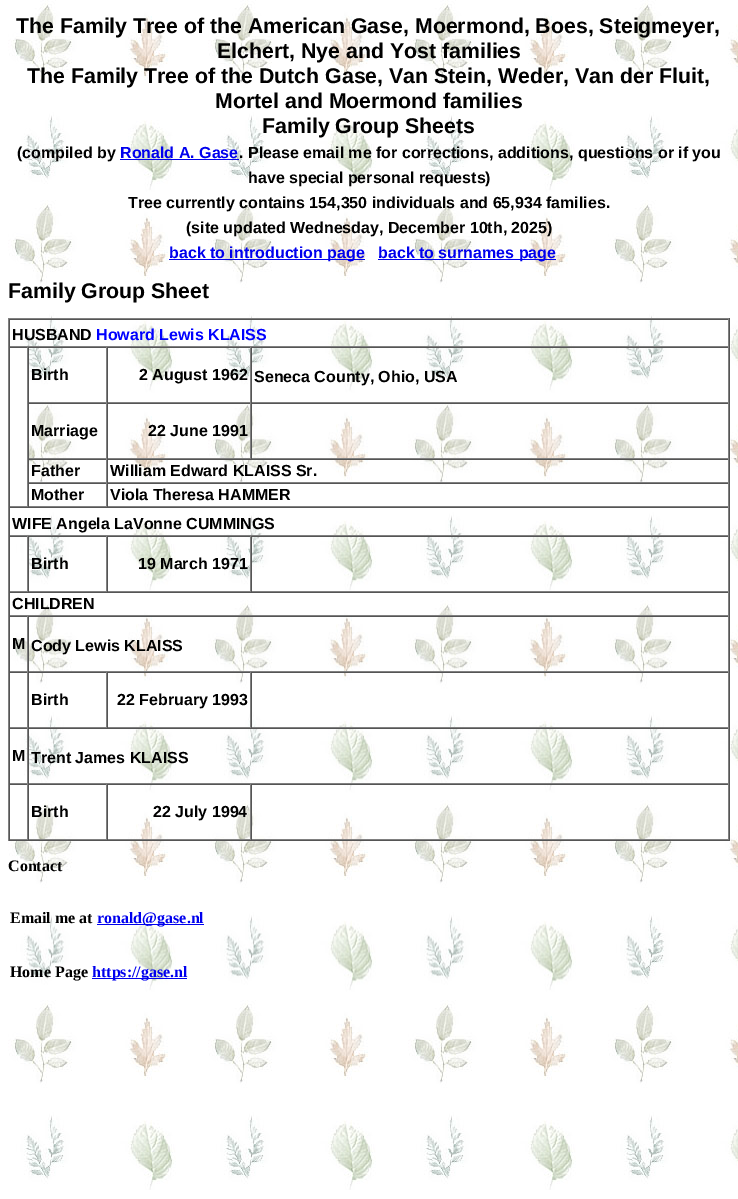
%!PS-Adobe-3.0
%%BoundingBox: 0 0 738 1199
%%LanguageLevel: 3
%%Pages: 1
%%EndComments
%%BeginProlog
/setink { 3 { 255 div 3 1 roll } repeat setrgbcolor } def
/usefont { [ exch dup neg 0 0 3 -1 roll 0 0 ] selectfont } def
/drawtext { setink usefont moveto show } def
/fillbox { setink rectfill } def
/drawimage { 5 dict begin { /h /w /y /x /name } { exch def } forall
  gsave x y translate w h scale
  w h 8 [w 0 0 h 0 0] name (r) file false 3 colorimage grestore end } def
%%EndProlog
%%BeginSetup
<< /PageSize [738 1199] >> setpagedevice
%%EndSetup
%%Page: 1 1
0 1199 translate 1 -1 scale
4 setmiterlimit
0 0 738 1199 255 255 255 fillbox
(assets/img1.rgb) 8 0 730 1190 drawimage
(The Family Tree of the American Gase, Moermond, Boes, Steigmeyer,) 16 33 /LiberationSans-Bold 21.3 0 0 0 drawtext
(Elchert, Nye and Yost families) 217 58 /LiberationSans-Bold 21.3 0 0 0 drawtext
(The Family Tree of the Dutch Gase, Van Stein, Weder, Van der Fluit,) 27 83 /LiberationSans-Bold 21.3 0 0 0 drawtext
(Mortel and Moermond families) 215 108 /LiberationSans-Bold 21.3 0 0 0 drawtext
(Family Group Sheets) 262 133 /LiberationSans-Bold 21.3 0 0 0 drawtext
(\(compiled by) 17 158 /LiberationSans-Bold 16 0 0 0 drawtext
(Ronald A. Gase) 120 158 /LiberationSans-Bold 16 0 0 238 drawtext
(. Please email me for corrections, additions, questions or if you) 239 158 /LiberationSans-Bold 16 0 0 0 drawtext
120 159 119 1 0 0 238 fillbox
(have special personal requests\)) 248 183 /LiberationSans-Bold 16 0 0 0 drawtext
(Tree currently contains 154,350 individuals and 65,934 families.) 128 208 /LiberationSans-Bold 16 0 0 0 drawtext
(\(site updated Wednesday, December 10th, 2025\)) 186 233 /LiberationSans-Bold 16 0 0 0 drawtext
169 259 196 1 0 0 238 fillbox
(back to introduction page) 169 258 /LiberationSans-Bold 16 0 0 238 drawtext
378 259 178 1 0 0 238 fillbox
(back to surnames page) 378 258 /LiberationSans-Bold 16 0 0 238 drawtext
(Family Group Sheet) 8 298 /LiberationSans-Bold 21.3 0 0 0 drawtext
(assets/img2.rgb) 15 320 656 519 drawimage
8 318 722 1 128 128 128 fillbox
729 318 1 523 85 85 85 fillbox
8 840 722 1 85 85 85 fillbox
8 318 1 523 128 128 128 fillbox
9 319 720 1 85 85 85 fillbox
728 319 1 28 128 128 128 fillbox
9 346 720 1 128 128 128 fillbox
9 319 1 28 85 85 85 fillbox
(HUSBAND) 12 340 /LiberationSans-Bold 16 0 0 0 drawtext
(Howard Lewis KLAISS) 96 340 /LiberationSans-Bold 16 0 0 255 drawtext
10 348 17 117 255 255 255 fillbox
9 347 720 1 85 85 85 fillbox
27 347 1 160 128 128 128 fillbox
9 506 19 1 128 128 128 fillbox
9 347 1 160 85 85 85 fillbox
106 347 1 56 128 128 128 fillbox
28 402 79 1 128 128 128 fillbox
28 347 1 56 85 85 85 fillbox
(Birth) 31 380 /LiberationSans-Bold 16 0 0 0 drawtext
250 347 1 56 128 128 128 fillbox
107 402 144 1 128 128 128 fillbox
107 347 1 56 85 85 85 fillbox
(2 August 1962) 139 380 /LiberationSans-Bold 16 0 0 0 drawtext
728 347 1 56 128 128 128 fillbox
251 402 478 1 128 128 128 fillbox
251 347 1 56 85 85 85 fillbox
(Seneca County, Ohio, USA) 254 382 /LiberationSans-Bold 16 0 0 0 drawtext
28 403 701 1 85 85 85 fillbox
106 403 1 56 128 128 128 fillbox
28 458 79 1 128 128 128 fillbox
28 403 1 56 85 85 85 fillbox
(Marriage) 31 436 /LiberationSans-Bold 16 0 0 0 drawtext
250 403 1 56 128 128 128 fillbox
107 458 144 1 128 128 128 fillbox
107 403 1 56 85 85 85 fillbox
(22 June 1991) 148 436 /LiberationSans-Bold 16 0 0 0 drawtext
728 403 1 56 128 128 128 fillbox
251 458 478 1 128 128 128 fillbox
251 403 1 56 85 85 85 fillbox
28 459 701 1 85 85 85 fillbox
106 459 1 24 128 128 128 fillbox
28 482 79 1 128 128 128 fillbox
28 459 1 24 85 85 85 fillbox
(Father) 31 476 /LiberationSans-Bold 16 0 0 0 drawtext
728 459 1 24 128 128 128 fillbox
107 482 622 1 128 128 128 fillbox
107 459 1 24 85 85 85 fillbox
(William Edward KLAISS Sr.) 110 476 /LiberationSans-Bold 16 0 0 0 drawtext
28 483 701 1 85 85 85 fillbox
106 483 1 24 128 128 128 fillbox
28 506 79 1 128 128 128 fillbox
28 483 1 24 85 85 85 fillbox
(Mother) 31 500 /LiberationSans-Bold 16 0 0 0 drawtext
728 483 1 24 128 128 128 fillbox
107 506 622 1 128 128 128 fillbox
107 483 1 24 85 85 85 fillbox
(Viola Theresa HAMMER) 110 500 /LiberationSans-Bold 16 0 0 0 drawtext
9 507 720 1 85 85 85 fillbox
728 507 1 29 128 128 128 fillbox
9 535 720 1 128 128 128 fillbox
9 507 1 29 85 85 85 fillbox
(WIFE Angela LaVonne CUMMINGS) 12 529 /LiberationSans-Bold 16 0 0 0 drawtext
24 537 3 38 255 255 255 fillbox
9 536 720 1 85 85 85 fillbox
27 536 1 56 128 128 128 fillbox
9 591 19 1 128 128 128 fillbox
9 536 1 56 85 85 85 fillbox
106 536 1 56 128 128 128 fillbox
28 591 79 1 128 128 128 fillbox
28 536 1 56 85 85 85 fillbox
(Birth) 31 569 /LiberationSans-Bold 16 0 0 0 drawtext
250 536 1 56 128 128 128 fillbox
107 591 144 1 128 128 128 fillbox
107 536 1 56 85 85 85 fillbox
(19 March 1971) 138 569 /LiberationSans-Bold 16 0 0 0 drawtext
728 536 1 56 128 128 128 fillbox
251 591 478 1 128 128 128 fillbox
251 536 1 56 85 85 85 fillbox
9 592 720 1 85 85 85 fillbox
728 592 1 24 128 128 128 fillbox
9 615 720 1 128 128 128 fillbox
9 592 1 24 85 85 85 fillbox
(CHILDREN) 12 609 /LiberationSans-Bold 16 0 0 0 drawtext
9 616 720 1 85 85 85 fillbox
27 616 1 56 128 128 128 fillbox
9 671 19 1 128 128 128 fillbox
9 616 1 56 85 85 85 fillbox
(M) 12 649 /LiberationSans-Bold 16 0 0 0 drawtext
728 616 1 56 128 128 128 fillbox
28 671 701 1 128 128 128 fillbox
28 616 1 56 85 85 85 fillbox
(Cody Lewis KLAISS) 31 651 /LiberationSans-Bold 16 0 0 0 drawtext
9 672 720 1 85 85 85 fillbox
27 672 1 56 128 128 128 fillbox
9 727 19 1 128 128 128 fillbox
9 672 1 56 85 85 85 fillbox
106 672 1 56 128 128 128 fillbox
28 727 79 1 128 128 128 fillbox
28 672 1 56 85 85 85 fillbox
(Birth) 31 705 /LiberationSans-Bold 16 0 0 0 drawtext
250 672 1 56 128 128 128 fillbox
107 727 144 1 128 128 128 fillbox
107 672 1 56 85 85 85 fillbox
(22 February 1993) 117 705 /LiberationSans-Bold 16 0 0 0 drawtext
728 672 1 56 128 128 128 fillbox
251 727 478 1 128 128 128 fillbox
251 672 1 56 85 85 85 fillbox
9 728 720 1 85 85 85 fillbox
27 728 1 56 128 128 128 fillbox
9 783 19 1 128 128 128 fillbox
9 728 1 56 85 85 85 fillbox
(M) 12 761 /LiberationSans-Bold 16 0 0 0 drawtext
728 728 1 56 128 128 128 fillbox
28 783 701 1 128 128 128 fillbox
28 728 1 56 85 85 85 fillbox
(Trent James KLAISS) 31 763 /LiberationSans-Bold 16 0 0 0 drawtext
14 836 10 3 255 255 255 fillbox
9 784 720 1 85 85 85 fillbox
27 784 1 56 128 128 128 fillbox
9 839 19 1 128 128 128 fillbox
9 784 1 56 85 85 85 fillbox
106 784 1 56 128 128 128 fillbox
28 839 79 1 128 128 128 fillbox
28 784 1 56 85 85 85 fillbox
(Birth) 31 817 /LiberationSans-Bold 16 0 0 0 drawtext
250 784 1 56 128 128 128 fillbox
107 839 144 1 128 128 128 fillbox
107 784 1 56 85 85 85 fillbox
(22 July 1994) 153 817 /LiberationSans-Bold 16 0 0 0 drawtext
728 784 1 56 128 128 128 fillbox
251 839 478 1 128 128 128 fillbox
251 784 1 56 85 85 85 fillbox
(Contact) 8 871 /LiberationSerif-Bold 16 0 0 0 drawtext
(assets/img3.rgb) 26 916 616 69 drawimage
(Email me at) 10 923 /LiberationSerif-Bold 16 0 0 0 drawtext
97 924 107 1 0 0 238 fillbox
(ronald@gase.nl) 97 923 /LiberationSerif-Bold 16 0 0 238 drawtext
(Home Page) 10 977 /LiberationSerif-Bold 16 0 0 0 drawtext
92 978 95 1 0 0 238 fillbox
(https://gase.nl) 92 977 /LiberationSerif-Bold 16 0 0 238 drawtext
showpage
%%EOF
